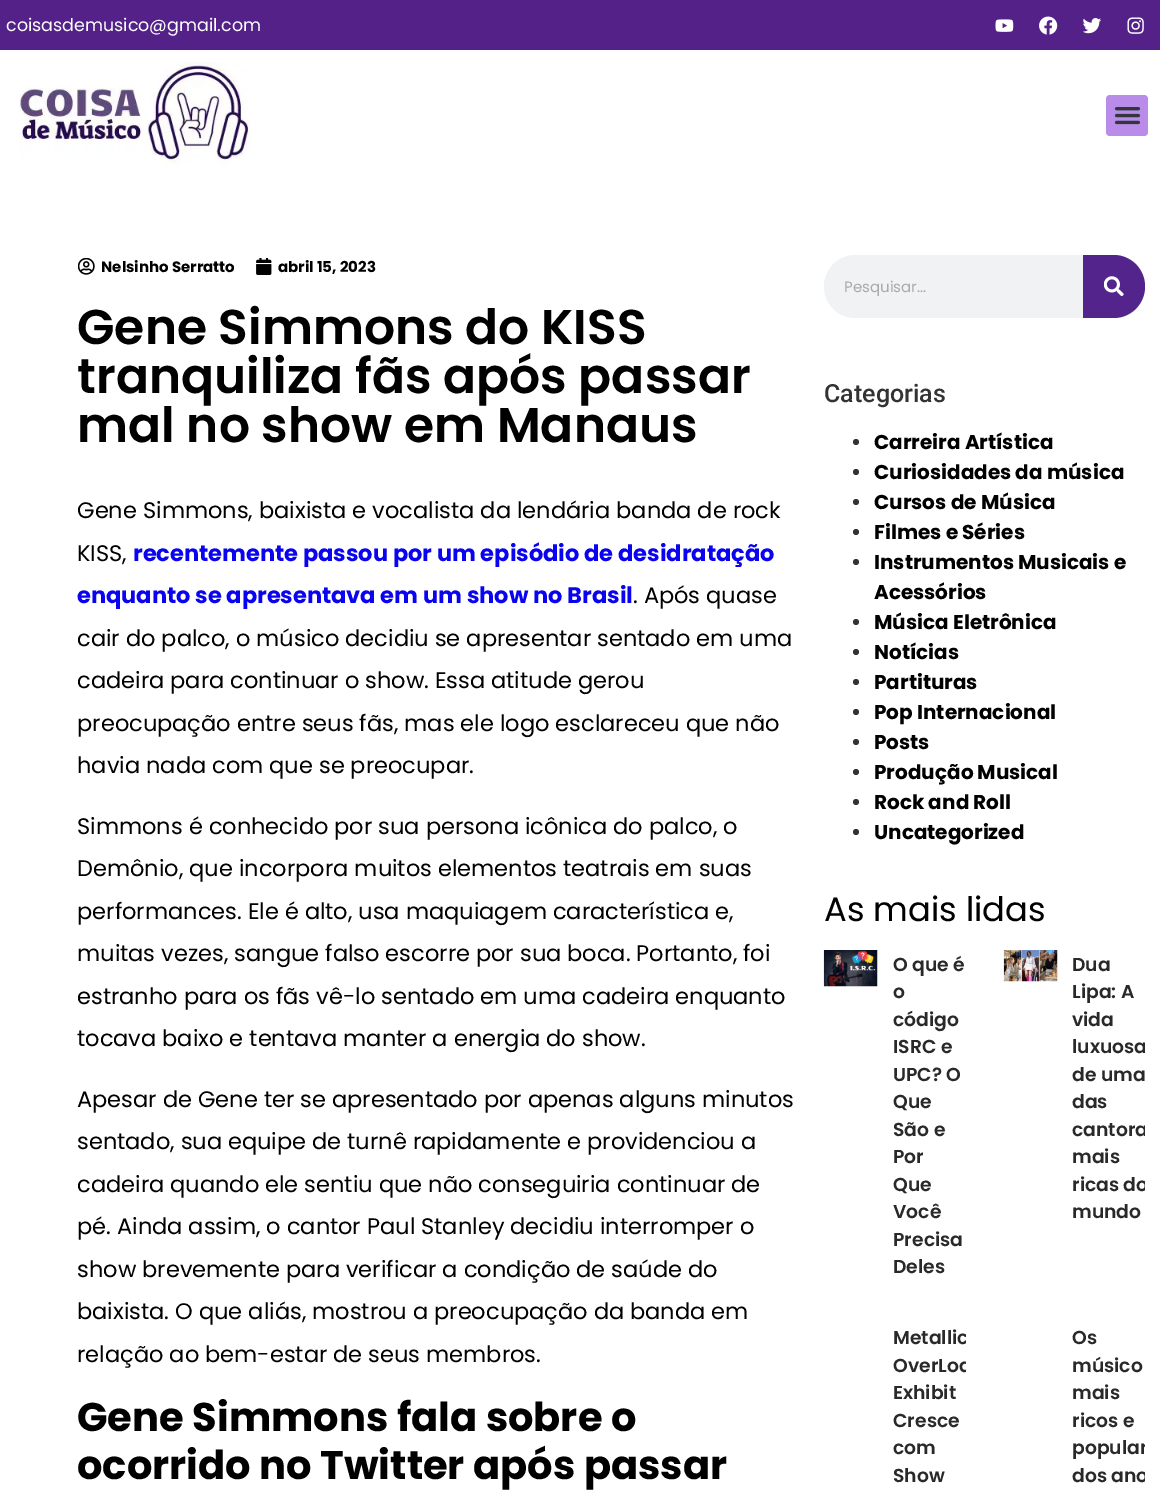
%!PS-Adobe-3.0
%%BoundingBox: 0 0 1160 1490
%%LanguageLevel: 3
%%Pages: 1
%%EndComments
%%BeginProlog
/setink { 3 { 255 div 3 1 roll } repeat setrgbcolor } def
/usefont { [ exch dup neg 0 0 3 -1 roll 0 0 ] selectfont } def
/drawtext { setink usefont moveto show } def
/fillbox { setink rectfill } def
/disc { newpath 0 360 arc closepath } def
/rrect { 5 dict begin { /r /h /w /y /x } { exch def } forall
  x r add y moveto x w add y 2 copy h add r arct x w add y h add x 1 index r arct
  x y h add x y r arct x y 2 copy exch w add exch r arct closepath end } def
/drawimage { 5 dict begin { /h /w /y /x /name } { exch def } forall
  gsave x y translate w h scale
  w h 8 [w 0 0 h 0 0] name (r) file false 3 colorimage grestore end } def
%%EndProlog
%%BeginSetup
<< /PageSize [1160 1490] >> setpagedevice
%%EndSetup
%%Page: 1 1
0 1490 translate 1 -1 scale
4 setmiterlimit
0 0 1160 1490 255 255 255 fillbox
0 0 1160 50 84 33 137 fillbox
(coisasdemusico@gmail.com) 6 31 /Poppins-Regular 17.5 255 255 255 drawtext
(assets/img1.rgb) 995 19 19 13 drawimage
(assets/img2.rgb) 1039 16 19 19 drawimage
(assets/img3.rgb) 1083 18 18 16 drawimage
(assets/img4.rgb) 1127 17 17 17 drawimage
(assets/img5.rgb) 19 62 232 103 drawimage
185 140 234 setink
1106 95 42 41 4 rrect fill
(assets/img6.rgb) 1114 107 27 18 drawimage
(assets/img7.rgb) 78 258 17 17 drawimage
(Nelsinho Serratto) 101 272 /Poppins-Bold 15 0 0 0 drawtext
(assets/img8.rgb) 256 258 16 17 drawimage
(abril 15, 2023) 278 272 /Poppins-Bold 15 0 0 0 drawtext
(Gene Simmons do KISS) 77 344 /Poppins-SemiBold 48.75 0 0 0 drawtext
(tranquiliza fãs após passar) 77 393 /Poppins-SemiBold 48.75 0 0 0 drawtext
(mal no show em Manaus) 77 442 /Poppins-SemiBold 48.75 0 0 0 drawtext
(Gene Simmons, baixista e vocalista da lendária banda de rock) 77 518 /Poppins-Regular 22.5 0 0 0 drawtext
(KISS,) 77 561 /Poppins-Regular 22.5 0 0 0 drawtext
(recentemente passou por um episódio de desidratação) 133 561 /Poppins-Bold 22.5 10 3 240 drawtext
(enquanto se apresentava em um show no Brasil) 77 603 /Poppins-Bold 22.5 10 3 240 drawtext
(. Após quase) 633 603 /Poppins-Regular 22.5 0 0 0 drawtext
(cair do palco, o músico decidiu se apresentar sentado em uma) 77 646 /Poppins-Regular 22.5 0 0 0 drawtext
(cadeira para continuar o show. Essa atitude gerou) 77 688 /Poppins-Regular 22.5 0 0 0 drawtext
(preocupação entre seus fãs, mas ele logo esclareceu que não) 77 731 /Poppins-Regular 22.5 0 0 0 drawtext
(havia nada com que se preocupar.) 77 773 /Poppins-Regular 22.5 0 0 0 drawtext
(Simmons é conhecido por sua persona icônica do palco, o) 77 834 /Poppins-Regular 22.5 0 0 0 drawtext
(Demônio, que incorpora muitos elementos teatrais em suas) 77 876 /Poppins-Regular 22.5 0 0 0 drawtext
(performances. Ele é alto, usa maquiagem característica e,) 77 919 /Poppins-Regular 22.5 0 0 0 drawtext
(muitas vezes, sangue falso escorre por sua boca. Portanto, foi) 77 961 /Poppins-Regular 22.5 0 0 0 drawtext
(estranho para os fãs vê-lo sentado em uma cadeira enquanto) 77 1004 /Poppins-Regular 22.5 0 0 0 drawtext
(tocava baixo e tentava manter a energia do show.) 77 1046 /Poppins-Regular 22.5 0 0 0 drawtext
(Apesar de Gene ter se apresentado por apenas alguns minutos) 77 1107 /Poppins-Regular 22.5 0 0 0 drawtext
(sentado, sua equipe de turnê rapidamente e providenciou a) 77 1149 /Poppins-Regular 22.5 0 0 0 drawtext
(cadeira quando ele sentiu que não conseguiria continuar de) 77 1192 /Poppins-Regular 22.5 0 0 0 drawtext
(pé. Ainda assim, o cantor Paul Stanley decidiu interromper o) 77 1234 /Poppins-Regular 22.5 0 0 0 drawtext
(show brevemente para verificar a condição de saúde do) 77 1277 /Poppins-Regular 22.5 0 0 0 drawtext
(baixista. O que aliás, mostrou a preocupação da banda em) 77 1319 /Poppins-Regular 22.5 0 0 0 drawtext
(relação ao bem-estar de seus membros.) 77 1362 /Poppins-Regular 22.5 0 0 0 drawtext
(Gene Simmons fala sobre o) 77 1431 /Poppins-Bold 40 0 0 0 drawtext
(ocorrido no Twitter após passar) 77 1479 /Poppins-Bold 40 0 0 0 drawtext
241 242 243 setink
824 255 321 63 31.5 rrect fill
(Pesquisar...) 844 292 /Poppins-Regular 15 170 170 170 drawtext
83 36 139 setink
1083 255 moveto 1113.5 255 lineto 1131 255 1145 269 1145 286.5 curveto 1145 304 1131 318 1113.5 318 curveto 1083 318 lineto closepath fill
(assets/img9.rgb) 1104 276 20 20 drawimage
(Categorias) 824 402 /Roboto-Medium 25 51 51 51 drawtext
856 442 3 disc fill
(Carreira Artística) 874 449 /Poppins-Bold 20 0 0 0 drawtext
51 51 51 setink
856 472 3 disc fill
(Curiosidades da música) 874 479 /Poppins-Bold 20 0 0 0 drawtext
51 51 51 setink
856 502 3 disc fill
(Cursos de Música) 874 509 /Poppins-Bold 20 0 0 0 drawtext
51 51 51 setink
856 532 3 disc fill
(Filmes e Séries) 874 539 /Poppins-Bold 20 0 0 0 drawtext
51 51 51 setink
856 562 3 disc fill
(Instrumentos Musicais e) 874 569 /Poppins-Bold 20 0 0 0 drawtext
(Acessórios) 874 599 /Poppins-Bold 20 0 0 0 drawtext
51 51 51 setink
856 622 3 disc fill
(Música Eletrônica) 874 629 /Poppins-Bold 20 0 0 0 drawtext
51 51 51 setink
856 652 3 disc fill
(Notícias) 874 659 /Poppins-Bold 20 0 0 0 drawtext
51 51 51 setink
856 682 3 disc fill
(Partituras) 874 689 /Poppins-Bold 20 0 0 0 drawtext
51 51 51 setink
856 712 3 disc fill
(Pop Internacional) 874 719 /Poppins-Bold 20 0 0 0 drawtext
51 51 51 setink
856 742 3 disc fill
(Posts) 874 749 /Poppins-Bold 20 0 0 0 drawtext
51 51 51 setink
856 772 3 disc fill
(Produção Musical) 874 779 /Poppins-Bold 20 0 0 0 drawtext
51 51 51 setink
856 802 3 disc fill
(Rock and Roll) 874 809 /Poppins-Bold 20 0 0 0 drawtext
51 51 51 setink
856 832 3 disc fill
(Uncategorized) 874 839 /Poppins-Bold 20 0 0 0 drawtext
(As mais lidas) 824 921 /Poppins-Regular 33.75 0 0 0 drawtext
(assets/img10.rgb) 823 950 55 37 drawimage
(O que é) 893 971 /Poppins-SemiBold 18.75 41 41 41 drawtext
(o) 893 998 /Poppins-SemiBold 18.75 41 41 41 drawtext
(código) 893 1026 /Poppins-SemiBold 18.75 41 41 41 drawtext
(ISRC e) 893 1053 /Poppins-SemiBold 18.75 41 41 41 drawtext
(UPC? O) 893 1081 /Poppins-SemiBold 18.75 41 41 41 drawtext
(Que) 893 1108 /Poppins-SemiBold 18.75 41 41 41 drawtext
(São e) 893 1136 /Poppins-SemiBold 18.75 41 41 41 drawtext
(Por) 893 1163 /Poppins-SemiBold 18.75 41 41 41 drawtext
(Que) 893 1191 /Poppins-SemiBold 18.75 41 41 41 drawtext
(Você) 893 1218 /Poppins-SemiBold 18.75 41 41 41 drawtext
(Precisa) 893 1246 /Poppins-SemiBold 18.75 41 41 41 drawtext
(Deles) 893 1273 /Poppins-SemiBold 18.75 41 41 41 drawtext
(assets/img11.rgb) 1003 950 55 32 drawimage
(Dua) 1072 971 /Poppins-SemiBold 18.75 41 41 41 drawtext
(Lipa: A) 1072 998 /Poppins-SemiBold 18.75 41 41 41 drawtext
(vida) 1072 1026 /Poppins-SemiBold 18.75 41 41 41 drawtext
gsave
1004 950 141 330 rectclip
(luxuosa) 1072 1053 /Poppins-SemiBold 18.75 41 41 41 drawtext
grestore
(de uma) 1072 1081 /Poppins-SemiBold 18.75 41 41 41 drawtext
(das) 1072 1108 /Poppins-SemiBold 18.75 41 41 41 drawtext
gsave
1004 950 141 330 rectclip
(cantora) 1072 1136 /Poppins-SemiBold 18.75 41 41 41 drawtext
grestore
(mais) 1072 1163 /Poppins-SemiBold 18.75 41 41 41 drawtext
gsave
1004 950 141 330 rectclip
(ricas do) 1072 1191 /Poppins-SemiBold 18.75 41 41 41 drawtext
grestore
(mundo) 1072 1218 /Poppins-SemiBold 18.75 41 41 41 drawtext
gsave
824 1324 142 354 rectclip
(Metallic) 893 1344 /Poppins-SemiBold 18.75 41 41 41 drawtext
(OverLoa) 893 1372 /Poppins-SemiBold 18.75 41 41 41 drawtext
grestore
(Exhibit) 893 1399 /Poppins-SemiBold 18.75 41 41 41 drawtext
(Cresce) 893 1427 /Poppins-SemiBold 18.75 41 41 41 drawtext
(com) 893 1454 /Poppins-SemiBold 18.75 41 41 41 drawtext
(Show) 893 1482 /Poppins-SemiBold 18.75 41 41 41 drawtext
(Os) 1072 1344 /Poppins-SemiBold 18.75 41 41 41 drawtext
(músico) 1072 1372 /Poppins-SemiBold 18.75 41 41 41 drawtext
(mais) 1072 1399 /Poppins-SemiBold 18.75 41 41 41 drawtext
(ricos e) 1072 1427 /Poppins-SemiBold 18.75 41 41 41 drawtext
gsave
1004 1324 141 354 rectclip
(popular) 1072 1454 /Poppins-SemiBold 18.75 41 41 41 drawtext
(dos ano) 1072 1482 /Poppins-SemiBold 18.75 41 41 41 drawtext
grestore
showpage
%%EOF
